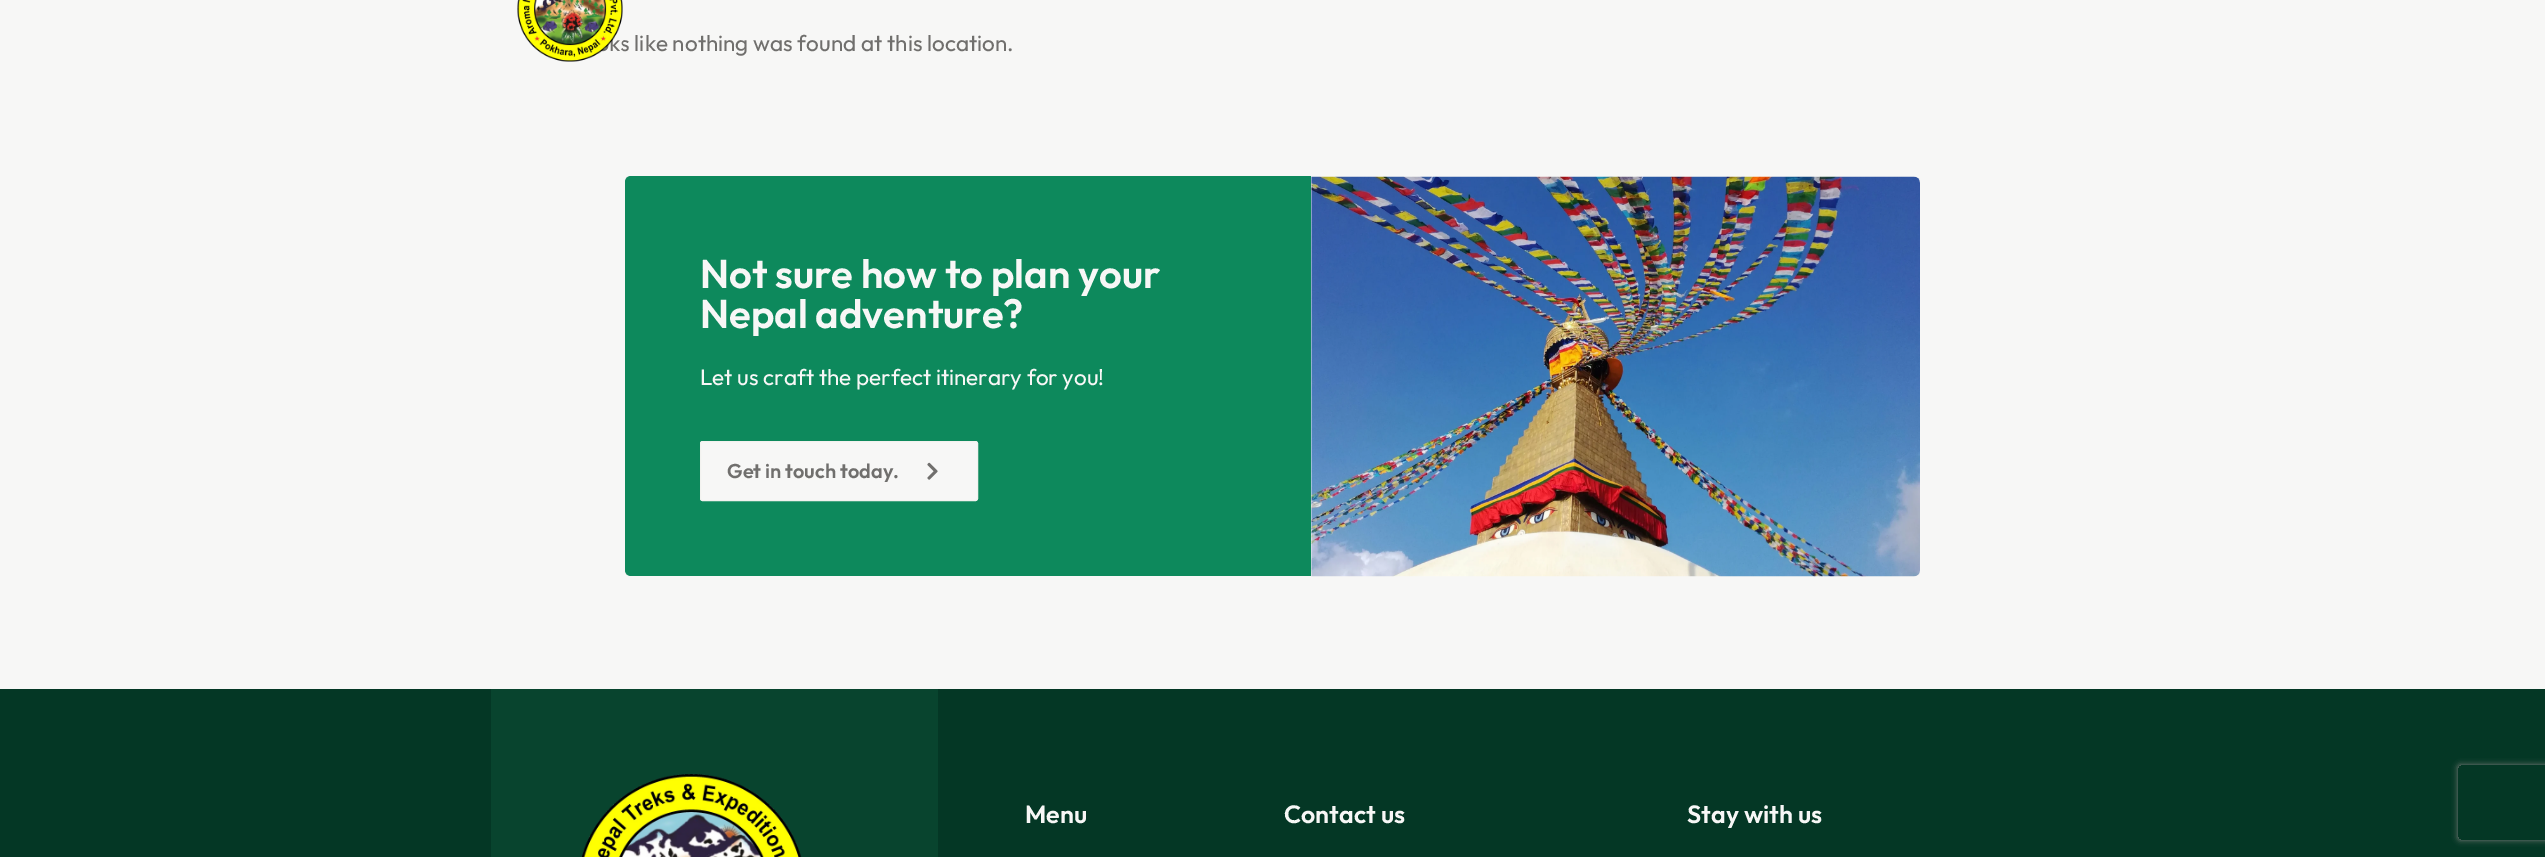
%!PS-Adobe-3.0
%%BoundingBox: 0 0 2545 857
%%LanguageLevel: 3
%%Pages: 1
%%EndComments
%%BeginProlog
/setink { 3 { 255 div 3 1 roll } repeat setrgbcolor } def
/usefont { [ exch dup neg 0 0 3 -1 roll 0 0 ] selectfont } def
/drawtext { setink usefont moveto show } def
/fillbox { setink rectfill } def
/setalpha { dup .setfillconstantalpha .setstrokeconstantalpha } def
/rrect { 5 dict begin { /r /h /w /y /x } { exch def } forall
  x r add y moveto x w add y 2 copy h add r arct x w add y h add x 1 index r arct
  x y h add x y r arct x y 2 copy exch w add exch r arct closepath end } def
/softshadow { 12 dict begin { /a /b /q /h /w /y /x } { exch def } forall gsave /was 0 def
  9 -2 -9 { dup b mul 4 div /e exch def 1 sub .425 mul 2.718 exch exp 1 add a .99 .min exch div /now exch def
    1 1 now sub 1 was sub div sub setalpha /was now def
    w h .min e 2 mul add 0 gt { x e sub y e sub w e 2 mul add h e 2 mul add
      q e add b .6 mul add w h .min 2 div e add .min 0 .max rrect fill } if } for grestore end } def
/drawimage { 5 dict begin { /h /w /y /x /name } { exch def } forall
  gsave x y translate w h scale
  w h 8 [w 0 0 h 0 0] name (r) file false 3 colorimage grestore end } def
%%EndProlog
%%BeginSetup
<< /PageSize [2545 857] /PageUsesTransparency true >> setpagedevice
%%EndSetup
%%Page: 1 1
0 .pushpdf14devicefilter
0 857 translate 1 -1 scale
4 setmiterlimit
0 0 2545 857 247 247 246 fillbox
(ks like nothing was found at this location.) 609 51 /Outfit-Regular 22.5 112 111 109 drawtext
(assets/img1.rgb) 517 0 106 62 drawimage
13 137 92 setink
631 176 moveto 1311 176 lineto 1311 576 lineto 631 576 lineto 627.5 576 625 573.5 625 570 curveto 625 182 lineto 625 178.5 627.5 176 631 176 curveto closepath fill
(Not sure how to plan your) 700 288 /Outfit-SemiBold 40 247 247 246 drawtext
(Nepal adventure?) 700 328 /Outfit-SemiBold 40 247 247 246 drawtext
(Let us craft the perfect itinerary for you!) 700 385 /Outfit-Regular 22.5 247 247 246 drawtext
700.5 441.5 277 59 2 rrect gsave fill grestore
242 242 239 setink
stroke
(Get in touch today.) 727 478 /Outfit-SemiBold 20 112 111 109 drawtext
(assets/img2.rgb) 927 462 11 18 drawimage
(assets/img3.rgb) 1311 176 609 401 drawimage
0 689 2545 168 4 55 37 fillbox
491 689 447 168 8 68 46 fillbox
(assets/img4.rgb) 581 774 221 83 drawimage
(Menu) 1025 823 /Outfit-SemiBold 25 247 247 246 drawtext
(Contact us) 1284 823 /Outfit-SemiBold 25 247 247 246 drawtext
(Stay with us) 1687 823 /Outfit-SemiBold 25 247 247 246 drawtext
gsave
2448 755 moveto 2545 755 lineto 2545 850 lineto 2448 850 lineto closepath 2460.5 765 moveto 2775.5 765 lineto 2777 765 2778 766 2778 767.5 curveto 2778 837.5 lineto 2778 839 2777 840 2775.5 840 curveto 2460.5 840 lineto 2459 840 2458 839 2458 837.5 curveto 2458 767.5 lineto 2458 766 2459 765 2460.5 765 curveto closepath eoclip newpath
128 128 128 setink
2458 765 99 75 2.5 3 1 softshadow
grestore
.poppdf14devicefilter showpage
%%EOF
